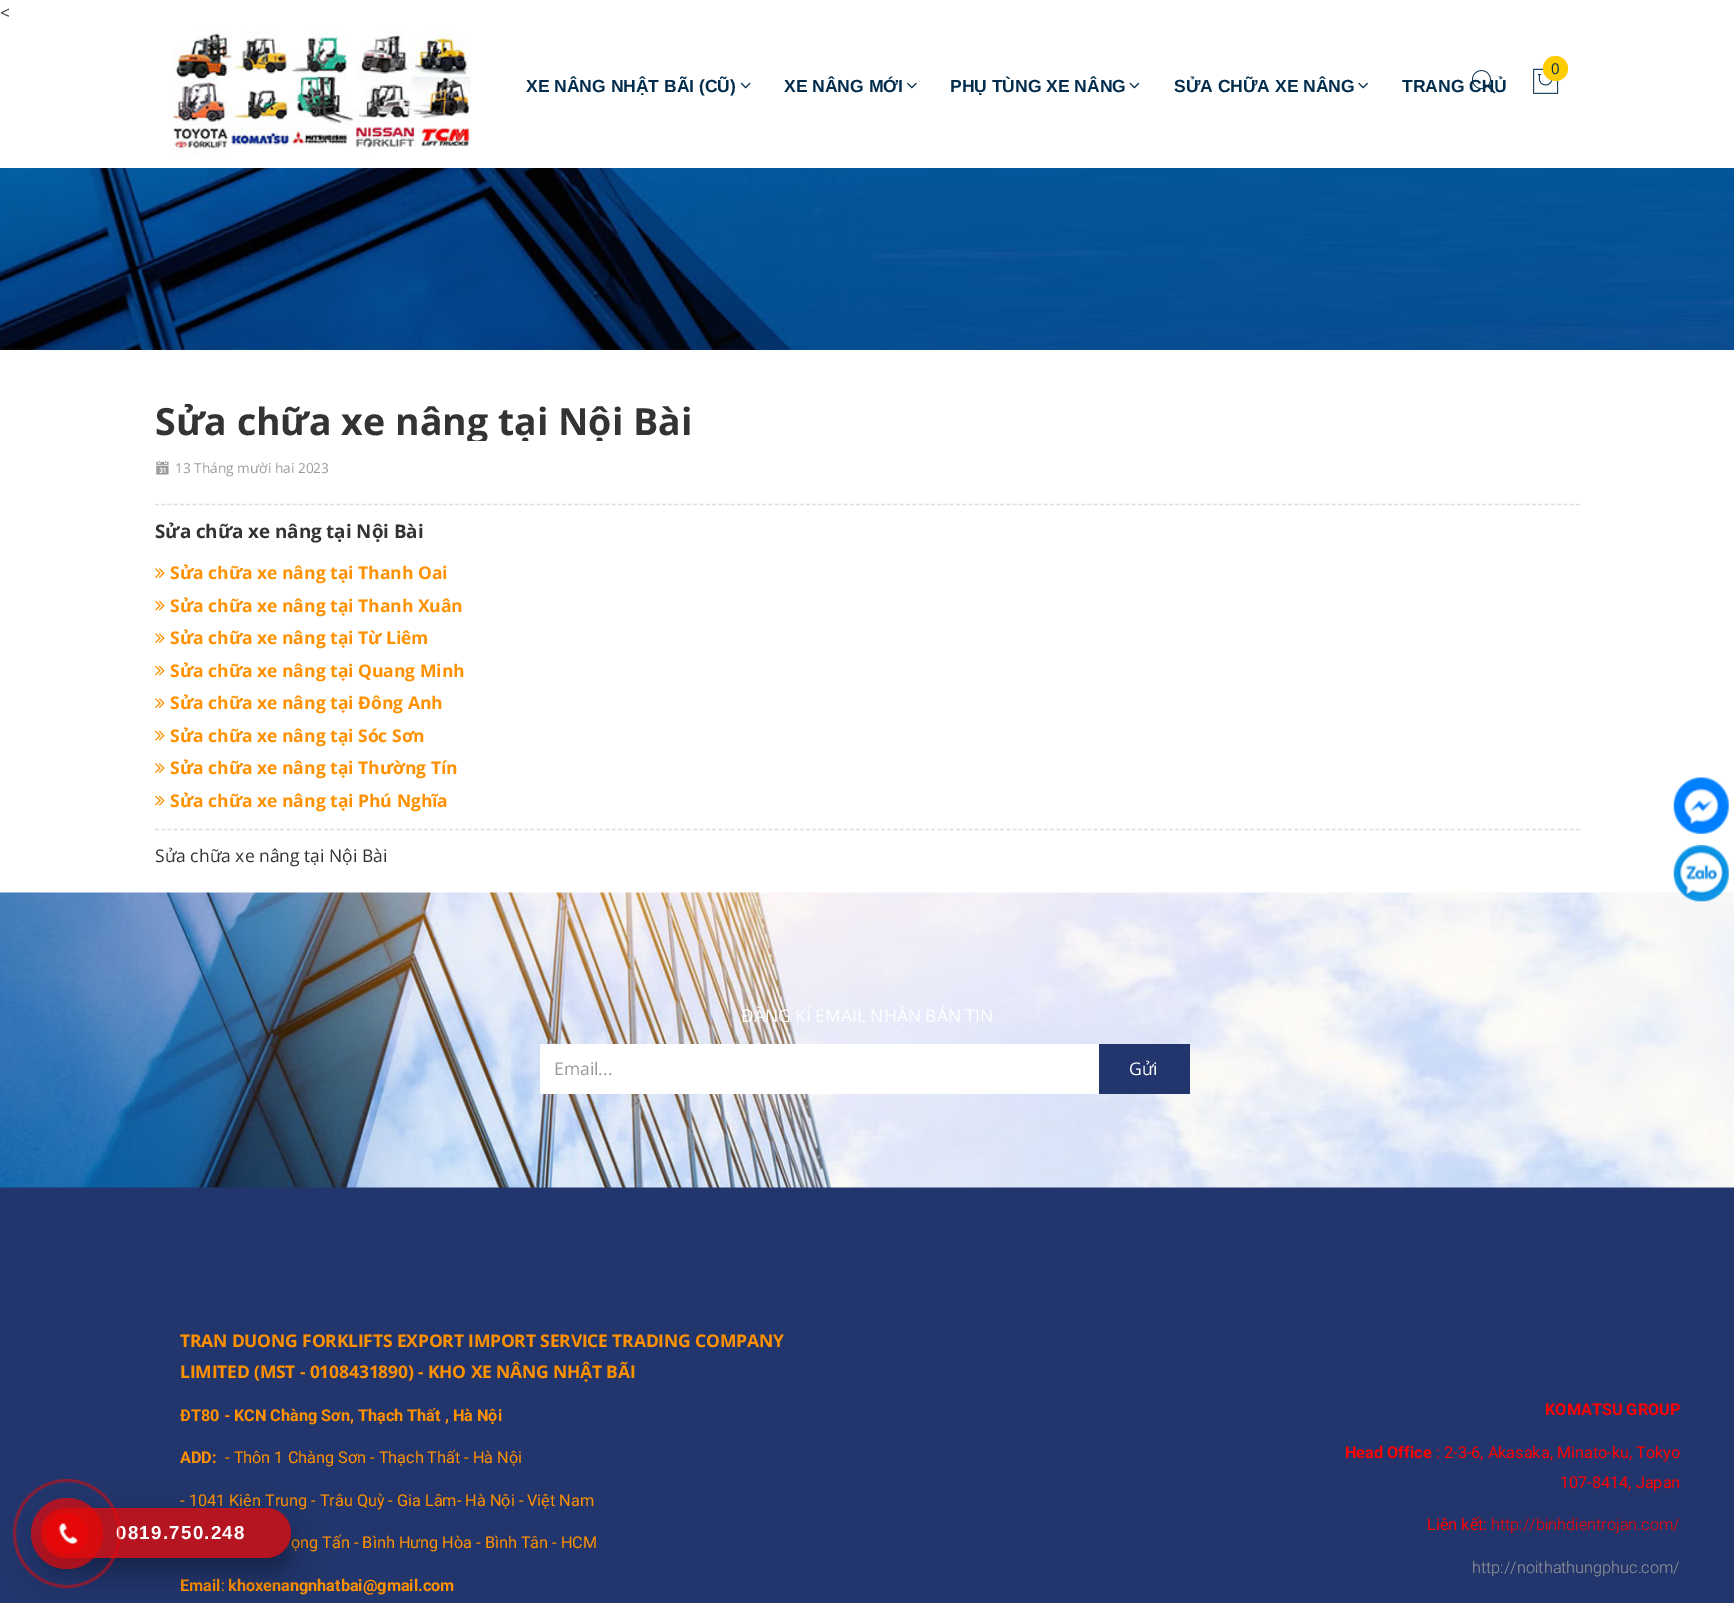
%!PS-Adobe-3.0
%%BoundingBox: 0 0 1734 1603
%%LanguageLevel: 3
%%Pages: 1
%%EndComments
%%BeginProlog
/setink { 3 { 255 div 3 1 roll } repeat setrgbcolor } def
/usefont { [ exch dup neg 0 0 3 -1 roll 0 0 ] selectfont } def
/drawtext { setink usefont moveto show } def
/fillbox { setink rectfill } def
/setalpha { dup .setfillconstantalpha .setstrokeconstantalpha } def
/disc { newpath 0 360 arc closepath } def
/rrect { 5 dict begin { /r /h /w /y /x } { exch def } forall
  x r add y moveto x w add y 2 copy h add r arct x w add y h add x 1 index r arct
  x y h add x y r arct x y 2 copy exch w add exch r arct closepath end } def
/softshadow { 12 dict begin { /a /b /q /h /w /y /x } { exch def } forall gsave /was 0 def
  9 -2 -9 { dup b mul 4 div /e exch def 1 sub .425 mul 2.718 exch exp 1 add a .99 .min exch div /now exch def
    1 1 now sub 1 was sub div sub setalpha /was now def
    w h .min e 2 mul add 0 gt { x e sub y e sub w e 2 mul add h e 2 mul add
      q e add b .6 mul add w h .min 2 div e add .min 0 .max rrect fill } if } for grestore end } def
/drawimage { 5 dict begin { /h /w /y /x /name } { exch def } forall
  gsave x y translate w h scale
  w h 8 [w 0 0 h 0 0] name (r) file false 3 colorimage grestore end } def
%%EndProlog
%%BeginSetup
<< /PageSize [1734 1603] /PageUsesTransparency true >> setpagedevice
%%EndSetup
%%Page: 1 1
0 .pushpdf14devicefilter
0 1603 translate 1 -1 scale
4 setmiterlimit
0 0 1734 1603 255 255 255 fillbox
(<) 0 19 /OpenSans-Regular 17.5 51 51 51 drawtext
(assets/img1.rgb) 173 31 299 124 drawimage
(TRANG CHỦ) 1402 92 /LiberationSans-Bold 17.5 1 44 76 drawtext
(assets/img2.rgb) 1472 70 24 24 drawimage
(assets/img3.rgb) 1533 68 26 26 drawimage
255 204 0 setink
1555.5 68.5 12.5 disc fill
(0) 1551 74 /OpenSans-Regular 15 1 44 76 drawtext
(XE NÂNG NHẬT BÃI \(CŨ\)) 526 92 /LiberationSans-Bold 17.5 1 44 76 drawtext
(assets/img4.rgb) 740 82 11 7 drawimage
(XE NÂNG MỚI) 784 92 /LiberationSans-Bold 17.5 1 44 76 drawtext
(assets/img5.rgb) 907 82 10 7 drawimage
(PHỤ TÙNG XE NÂNG) 950 92 /LiberationSans-Bold 17.5 1 44 76 drawtext
(assets/img6.rgb) 1129 82 11 7 drawimage
(SỬA CHỮA XE NÂNG) 1174 92 /LiberationSans-Bold 17.5 1 44 76 drawtext
(assets/img7.rgb) 1358 82 10 7 drawimage
(assets/img8.rgb) 0 168 1734 182 drawimage
221 221 221 setink
1.2 setlinewidth
[3.75 2.51] 0 setdash
155 504.5 moveto 1580 504.5 lineto stroke
gsave
155 400 1425 41 rectclip
(Sửa chữa xe nâng tại Nội Bài) 155 435 /OpenSans-Bold 37.5 51 51 51 drawtext
grestore
(assets/img9.rgb) 156 460 13 15 drawimage
(13 Tháng mười hai 2023) 175 473 /OpenSans-Regular 13.75 153 153 153 drawtext
(Sửa chữa xe nâng tại Nội Bài) 155 538 /OpenSans-Bold 18.75 51 51 51 drawtext
221 221 221 setink
155 829.5 moveto 1580 829.5 lineto stroke
(assets/img10.rgb) 155 568 10 10 drawimage
(Sửa chữa xe nâng tại Thanh Oai) 170 579 /OpenSans-Bold 17.5 255 144 0 drawtext
(assets/img11.rgb) 155 600 10 11 drawimage
(Sửa chữa xe nâng tại Thanh Xuân) 170 612 /OpenSans-Bold 17.5 255 144 0 drawtext
(assets/img10.rgb) 155 633 10 10 drawimage
(Sửa chữa xe nâng tại Từ Liêm) 170 644 /OpenSans-Bold 17.5 255 144 0 drawtext
(assets/img11.rgb) 155 665 10 11 drawimage
(Sửa chữa xe nâng tại Quang Minh) 170 677 /OpenSans-Bold 17.5 255 144 0 drawtext
(assets/img10.rgb) 155 698 10 10 drawimage
(Sửa chữa xe nâng tại Đông Anh) 170 709 /OpenSans-Bold 17.5 255 144 0 drawtext
(assets/img11.rgb) 155 730 10 11 drawimage
(Sửa chữa xe nâng tại Sóc Sơn) 170 742 /OpenSans-Bold 17.5 255 144 0 drawtext
(assets/img10.rgb) 155 763 10 10 drawimage
(Sửa chữa xe nâng tại Thường Tín) 170 774 /OpenSans-Bold 17.5 255 144 0 drawtext
(assets/img11.rgb) 155 795 10 11 drawimage
(Sửa chữa xe nâng tại Phú Nghĩa) 170 807 /OpenSans-Bold 17.5 255 144 0 drawtext
(Sửa chữa xe nâng tại Nội Bài) 155 862 /OpenSans-Regular 17.5 51 51 51 drawtext
(assets/img12.rgb) 1673 777 56 57 drawimage
0 1187 1734 416 34 54 109 fillbox
(assets/img14.rgb) 0 892 1734 296 drawimage
(assets/img13.rgb) 1673 844 56 58 drawimage
(ĐĂNG KÍ EMAIL NHẬN BẢN TIN) 741 1022 /OpenSans-Regular 17.5 254 254 254 drawtext
540 1044 559 50 255 255 255 fillbox
(Email...) 554 1075 /OpenSans-Regular 17.5 153 153 153 drawtext
1099 1044 91 50 34 54 109 fillbox
(Gửi) 1129 1075 /OpenSans-Regular 17.5 254 254 254 drawtext
/OpenSans-Bold 17.5 usefont
255 144 0 setink
180 1347 moveto -0.18 0 (TRAN DUONG FORKLIFTS EXPORT IMPORT SERVICE TRADING COMPANY) ashow
180 1378 moveto -0.18 0 (LIMITED \(MST - 0108431890\) - KHO XE NÂNG NHẬT BÃI) ashow
(ĐT80 - KCN Chàng Sơn, Thạch Thất , Hà Nội) 180 1421 /Roboto-Bold 16.25 255 144 0 drawtext
(ADD:) 180 1463 /Roboto-Bold 16.25 255 144 0 drawtext
(- Thôn 1 Chàng Sơn - Thạch Thất - Hà Nội) 225 1463 /Roboto-Regular 16.25 255 144 0 drawtext
(- 1041 Kiên Trung - Trâu Quỳ - Gia Lâm- Hà Nội - Việt Nam) 180 1506 /Roboto-Regular 16.25 255 144 0 drawtext
(ọng Tấn - Bình Hưng Hòa - Bình Tân - HCM) 291 1548 /Roboto-Regular 16.25 255 144 0 drawtext
(Email) 180 1591 /Roboto-Bold 16.25 255 144 0 drawtext
(:) 221 1591 /Roboto-Regular 16.25 255 144 0 drawtext
(khoxenangnhatbai@gmail.com) 228 1591 /Roboto-Bold 16.25 255 144 0 drawtext
(KOMATSU GROUP) 1545 1415 /Roboto-Bold 16.25 255 0 0 drawtext
(Head Office) 1345 1458 /Roboto-Bold 16.25 255 0 0 drawtext
(: 2-3-6, Akasaka, Minato-ku, Tokyo) 1436 1458 /Roboto-Regular 16.25 255 0 0 drawtext
(107-8414, Japan) 1560 1488 /Roboto-Regular 16.25 255 0 0 drawtext
(Liên kết:) 1427 1530 /Roboto-Regular 16.25 255 0 0 drawtext
(http://binhdientrojan.com/) 1491 1530 /Roboto-Light 16.25 255 0 0 drawtext
(http://noithathungphuc.com/) 1472 1573 /Roboto-Light 16.25 153 153 153 drawtext
gsave
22 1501 moveto 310 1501 lineto 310 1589 lineto 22 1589 lineto closepath 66 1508 moveto 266 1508 lineto 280 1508 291 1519 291 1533 curveto 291 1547 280 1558 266 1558 curveto 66 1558 lineto 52 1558 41 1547 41 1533 curveto 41 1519 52 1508 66 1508 curveto closepath eoclip newpath
0 0 0 setink
41 1520 250 50 25 6 0.1 softshadow
grestore
gsave
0 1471 moveto 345 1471 lineto 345 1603 lineto 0 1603 lineto closepath 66 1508 moveto 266 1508 lineto 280 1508 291 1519 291 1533 curveto 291 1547 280 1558 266 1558 curveto 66 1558 lineto 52 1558 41 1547 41 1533 curveto 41 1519 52 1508 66 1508 curveto closepath eoclip newpath
0 0 0 setink
41 1525 250 50 25 17.5 0.25 softshadow
grestore
0.75 setalpha
230 8 8 setink
41 1508 250 50 25 rrect fill
/LiberationSans-Bold 18.75 usefont
1 setalpha
254 254 254 setink
116 1539 moveto 1.25 0 (0819.750.248) ashow
0.5 setalpha
230 8 8 setink
3 setlinewidth
[] 0 setdash
14.5 1480.5 105 106 52.5 rrect stroke
0.7 setalpha
31 1498 72 71 35.5 rrect fill
1 setalpha
46 1513 42 41 20.5 rrect fill
(assets/img15.rgb) 58 1523 20 22 drawimage
.poppdf14devicefilter showpage
%%EOF
